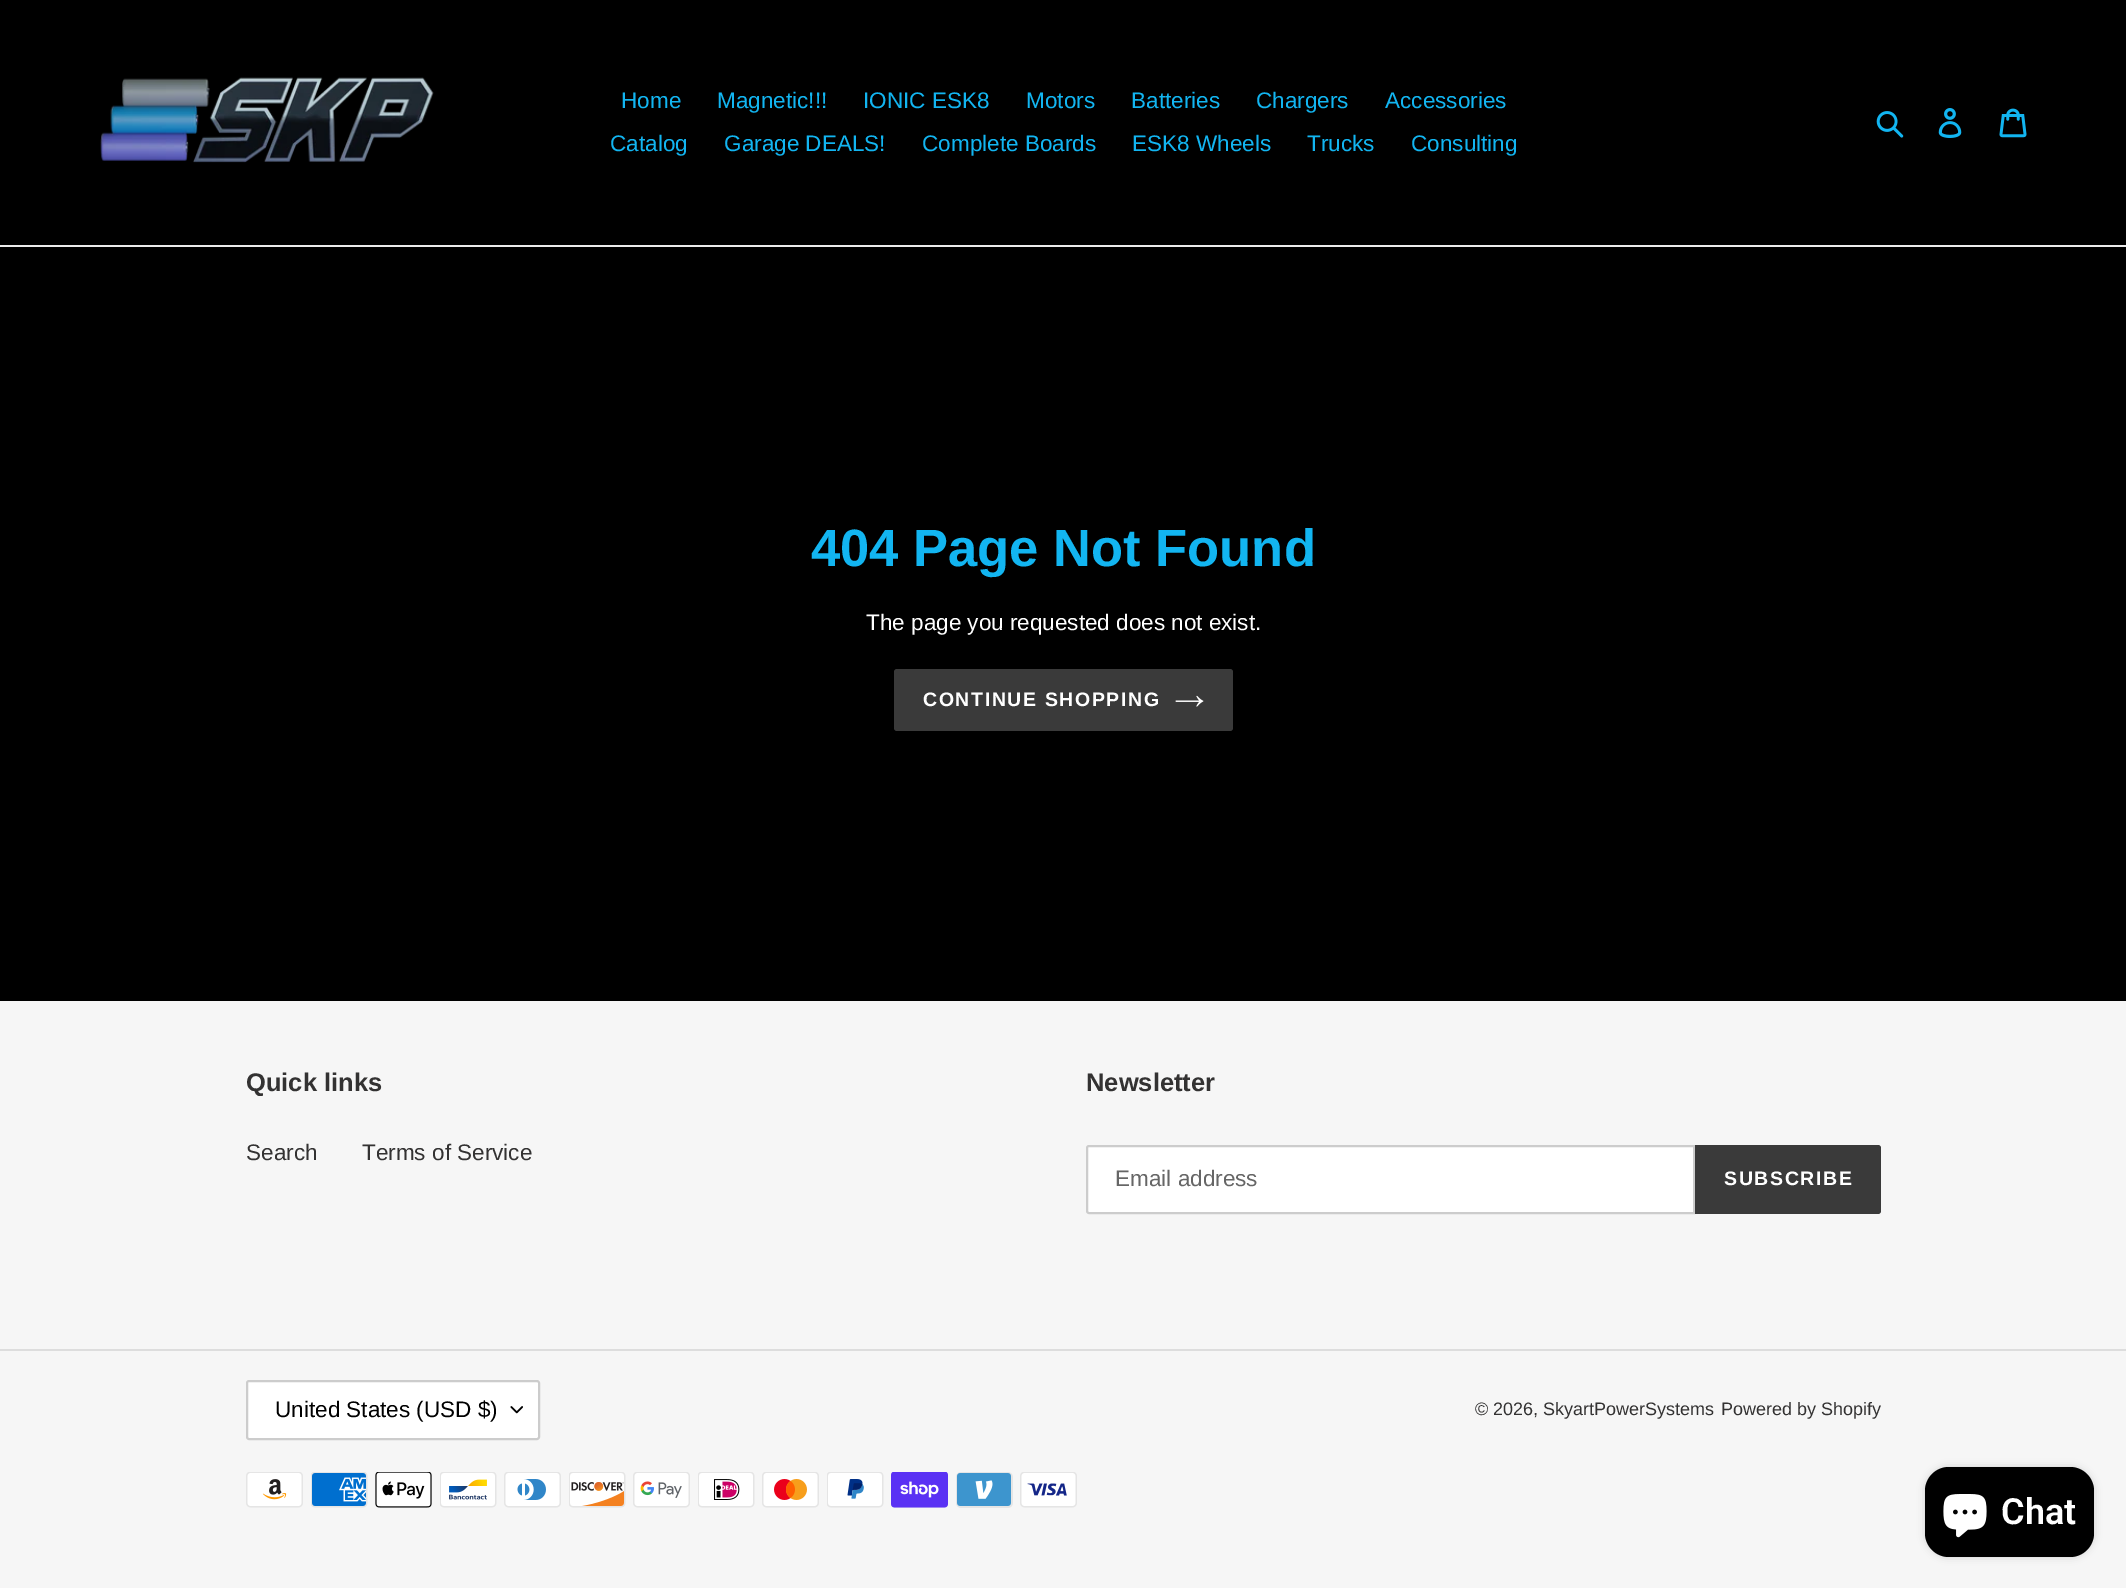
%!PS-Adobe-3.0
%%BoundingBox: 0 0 2126 1588
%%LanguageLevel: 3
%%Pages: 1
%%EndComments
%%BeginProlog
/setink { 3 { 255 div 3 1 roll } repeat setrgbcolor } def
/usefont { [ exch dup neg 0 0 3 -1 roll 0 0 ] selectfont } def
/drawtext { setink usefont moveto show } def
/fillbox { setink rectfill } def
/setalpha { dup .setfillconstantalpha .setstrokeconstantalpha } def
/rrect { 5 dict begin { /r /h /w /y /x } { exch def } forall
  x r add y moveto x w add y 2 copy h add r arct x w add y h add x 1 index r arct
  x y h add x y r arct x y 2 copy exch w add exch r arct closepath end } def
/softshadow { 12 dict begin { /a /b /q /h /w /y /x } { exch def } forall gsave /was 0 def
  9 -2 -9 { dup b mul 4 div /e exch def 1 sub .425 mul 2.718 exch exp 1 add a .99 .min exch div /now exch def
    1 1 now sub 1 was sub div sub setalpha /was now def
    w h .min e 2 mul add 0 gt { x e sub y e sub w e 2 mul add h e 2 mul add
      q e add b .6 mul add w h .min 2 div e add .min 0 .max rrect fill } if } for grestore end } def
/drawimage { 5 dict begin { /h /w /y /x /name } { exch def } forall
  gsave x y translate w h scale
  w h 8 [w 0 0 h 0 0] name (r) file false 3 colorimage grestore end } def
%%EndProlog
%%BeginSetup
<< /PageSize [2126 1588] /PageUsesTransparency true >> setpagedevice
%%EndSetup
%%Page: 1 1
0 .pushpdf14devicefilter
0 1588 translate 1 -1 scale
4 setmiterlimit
0 0 2126 1588 0 0 0 fillbox
0 245 2126 2 235 235 235 fillbox
(assets/img1.rgb) 100 77 334 86 drawimage
(Home) 621 108 /LiberationSans-Regular 22.5 18 181 241 drawtext
(Magnetic!!!) 717 108 /LiberationSans-Regular 22.5 18 181 241 drawtext
(IONIC ESK8) 863 108 /LiberationSans-Regular 22.5 18 181 241 drawtext
(Motors) 1026 108 /LiberationSans-Regular 22.5 18 181 241 drawtext
(Batteries) 1131 108 /LiberationSans-Regular 22.5 18 181 241 drawtext
(Chargers) 1256 108 /LiberationSans-Regular 22.5 18 181 241 drawtext
(Accessories) 1385 108 /LiberationSans-Regular 22.5 18 181 241 drawtext
(Catalog) 610 151 /LiberationSans-Regular 22.5 18 181 241 drawtext
(Garage DEALS!) 724 151 /LiberationSans-Regular 22.5 18 181 241 drawtext
(Complete Boards) 922 151 /LiberationSans-Regular 22.5 18 181 241 drawtext
(ESK8 Wheels) 1132 151 /LiberationSans-Regular 22.5 18 181 241 drawtext
(Trucks) 1307 151 /LiberationSans-Regular 22.5 18 181 241 drawtext
(Consulting) 1411 151 /LiberationSans-Regular 22.5 18 181 241 drawtext
(assets/img2.rgb) 1876 111 28 27 drawimage
(assets/img3.rgb) 1938 108 24 30 drawimage
(assets/img4.rgb) 1999 108 28 30 drawimage
(404 Page Not Found) 811 566 /LiberationSans-Bold 52.5 18 181 241 drawtext
(The page you requested does not exist.) 866 630 /LiberationSans-Regular 22.5 255 255 255 drawtext
58 58 58 setink
894 669 339 62 3 rrect fill
/LiberationSans-Bold 19.5 usefont
255 255 255 setink
923 706 moveto 1.6 0 (CONTINUE SHOPPING) ashow
(assets/img5.rgb) 1175 695 29 12 drawimage
0 1001 2126 587 246 246 246 fillbox
(Quick links) 246 1091 /LiberationSans-Bold 25.5 51 50 50 drawtext
(Search) 246 1160 /LiberationSans-Regular 22.5 51 50 50 drawtext
(Terms of Service) 362 1160 /LiberationSans-Regular 22.5 51 50 50 drawtext
(Newsletter) 1086 1091 /LiberationSans-Bold 25.5 51 50 50 drawtext
255 255 255 setink
1089 1146 moveto 1694 1146 lineto 1694 1213 lineto 1089 1213 lineto 1088 1213 1087 1212 1087 1211 curveto 1087 1148 lineto 1087 1147 1088 1146 1089 1146 curveto closepath gsave fill grestore
204 204 204 setink
2 setlinewidth
stroke
(Email address) 1115 1186 /LiberationSans-Regular 22.5 102 102 102 drawtext
58 58 58 setink
1695 1145 moveto 1878 1145 lineto 1879.5 1145 1881 1146.5 1881 1148 curveto 1881 1211 lineto 1881 1212.5 1879.5 1214 1878 1214 curveto 1695 1214 lineto closepath fill
/LiberationSans-Bold 19.5 usefont
255 255 255 setink
1724 1185 moveto 1.6 0 (SUBSCRIBE) ashow
0 1349 2126 2 221 221 221 fillbox
255 255 255 setink
246 1380 294 60 3 rrect fill
(assets/img6.rgb) 510 1406 13 8 drawimage
204 204 204 setink
247 1381 292 58 2 rrect stroke
(United States \(USD $\)) 275 1417 /LiberationSans-Regular 22.5 0 0 0 drawtext
(© 2026, SkyartPowerSystems) 1475 1415 /LiberationSans-Regular 18 51 50 50 drawtext
(Powered by Shopify) 1721 1415 /LiberationSans-Regular 18 51 50 50 drawtext
(assets/img7.rgb) 246 1472 57 36 drawimage
(assets/img8.rgb) 311 1472 57 36 drawimage
(assets/img9.rgb) 375 1472 57 36 drawimage
(assets/img10.rgb) 440 1472 57 36 drawimage
(assets/img11.rgb) 504 1472 57 36 drawimage
(assets/img12.rgb) 569 1472 57 36 drawimage
(assets/img13.rgb) 633 1472 57 36 drawimage
(assets/img14.rgb) 698 1472 57 36 drawimage
(assets/img15.rgb) 762 1472 57 36 drawimage
(assets/img16.rgb) 827 1472 57 36 drawimage
(assets/img17.rgb) 891 1472 57 36 drawimage
(assets/img18.rgb) 956 1472 57 36 drawimage
(assets/img19.rgb) 1020 1472 57 36 drawimage
0 0 0 setink
1925 1467 169 90 24 4 0.15 softshadow
1925 1467 169 90 24 rrect fill
(assets/img20.rgb) 1943 1494 44 44 drawimage
(Chat) 2001 1524 /Roboto-SemiBold 36 255 255 255 drawtext
.poppdf14devicefilter showpage
%%EOF
